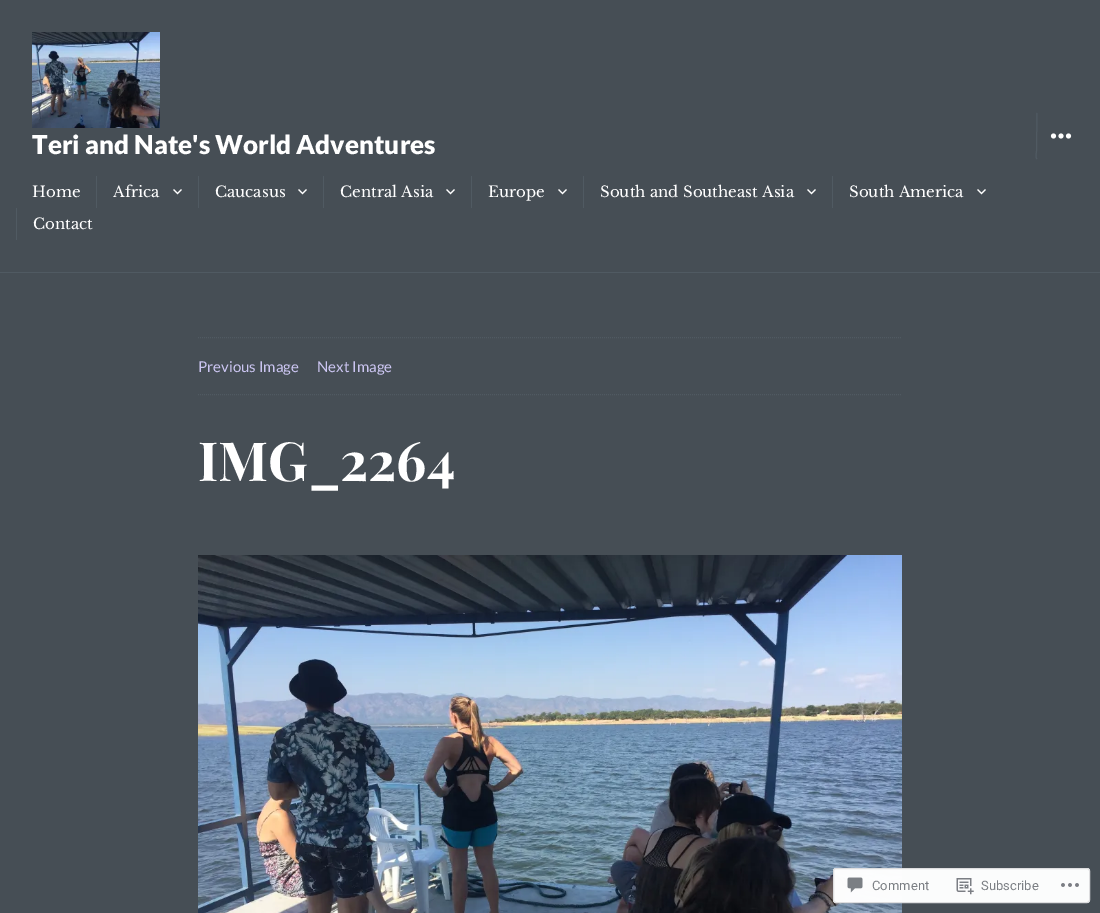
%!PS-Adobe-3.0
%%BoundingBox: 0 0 1100 913
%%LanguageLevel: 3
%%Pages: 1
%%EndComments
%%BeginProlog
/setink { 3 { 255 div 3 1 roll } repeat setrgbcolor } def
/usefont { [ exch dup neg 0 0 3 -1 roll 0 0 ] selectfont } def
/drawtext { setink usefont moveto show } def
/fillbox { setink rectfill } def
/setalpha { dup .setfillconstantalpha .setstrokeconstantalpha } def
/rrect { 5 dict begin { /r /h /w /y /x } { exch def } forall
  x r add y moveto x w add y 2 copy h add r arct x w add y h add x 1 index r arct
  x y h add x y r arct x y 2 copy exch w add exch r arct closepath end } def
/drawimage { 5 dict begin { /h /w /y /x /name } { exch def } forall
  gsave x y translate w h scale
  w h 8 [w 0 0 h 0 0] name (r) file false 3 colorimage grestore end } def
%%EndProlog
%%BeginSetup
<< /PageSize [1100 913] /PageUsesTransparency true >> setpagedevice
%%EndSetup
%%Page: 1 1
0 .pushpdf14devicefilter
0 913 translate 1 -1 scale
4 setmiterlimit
0 0 1100 913 70 78 85 fillbox
0 272 1100 1 80 90 98 fillbox
(assets/img1.rgb) 32 32 128 96 drawimage
(Teri and Nate's World Adventures) 32 154 /Lato-Black 26 255 255 255 drawtext
80 90 98 setink
1037 159 moveto 1035 157 1036.5 153.5 1036.5 150.5 curveto 1037 113 lineto stroke
(assets/img2.rgb) 1050 133 22 6 drawimage
(Home) 32 197 /LibreBaskerville-Regular 15 255 255 255 drawtext
96 176 1 32 80 90 98 fillbox
(Africa) 113 197 /LibreBaskerville-Regular 15 255 255 255 drawtext
(assets/img3.rgb) 173 189 9 6 drawimage
198 176 1 32 80 90 98 fillbox
(Caucasus) 215 197 /LibreBaskerville-Regular 15 255 255 255 drawtext
(assets/img3.rgb) 298 189 9 6 drawimage
323 176 1 32 80 90 98 fillbox
(Central Asia) 340 197 /LibreBaskerville-Regular 15 255 255 255 drawtext
(assets/img3.rgb) 446 189 9 6 drawimage
471 176 1 32 80 90 98 fillbox
(Europe) 488 197 /LibreBaskerville-Regular 15 255 255 255 drawtext
(assets/img3.rgb) 558 189 9 6 drawimage
583 176 1 32 80 90 98 fillbox
(South and Southeast Asia) 600 197 /LibreBaskerville-Regular 15 255 255 255 drawtext
(assets/img3.rgb) 807 189 9 6 drawimage
832 176 1 32 80 90 98 fillbox
(South America) 849 197 /LibreBaskerville-Regular 15 255 255 255 drawtext
(assets/img3.rgb) 977 189 9 6 drawimage
16 208 1 32 80 90 98 fillbox
(Contact) 33 229 /LibreBaskerville-Regular 15 255 255 255 drawtext
80 90 98 setink
[1 1] 0 setdash
198 337.5 moveto 902 337.5 lineto stroke
198 394.5 moveto 902 394.5 lineto stroke
(Previous Image) 198 372 /Lato-Regular 15 203 197 241 drawtext
(Next Image) 317 372 /Lato-Regular 15 203 197 241 drawtext
(IMG_2264) 198 481 /PlayfairDisplay-Bold 54 255 255 255 drawtext
(assets/img4.rgb) 198 555 704 358 drawimage
0.98 setalpha
833 868 257 35 3 rrect fill
220 220 222 setink
[] 0 setdash
833.5 868.5 256 34 2.5 rrect stroke
1 setalpha
(assets/img5.rgb) 847 877 16 16 drawimage
(Comment) 872 890 /Roboto-Regular 13 123 127 132 drawtext
(assets/img6.rgb) 956 878 18 17 drawimage
(Subscribe) 981 890 /Roboto-Regular 13 123 127 132 drawtext
(assets/img7.rgb) 1061 883 18 4 drawimage
.poppdf14devicefilter showpage
%%EOF
